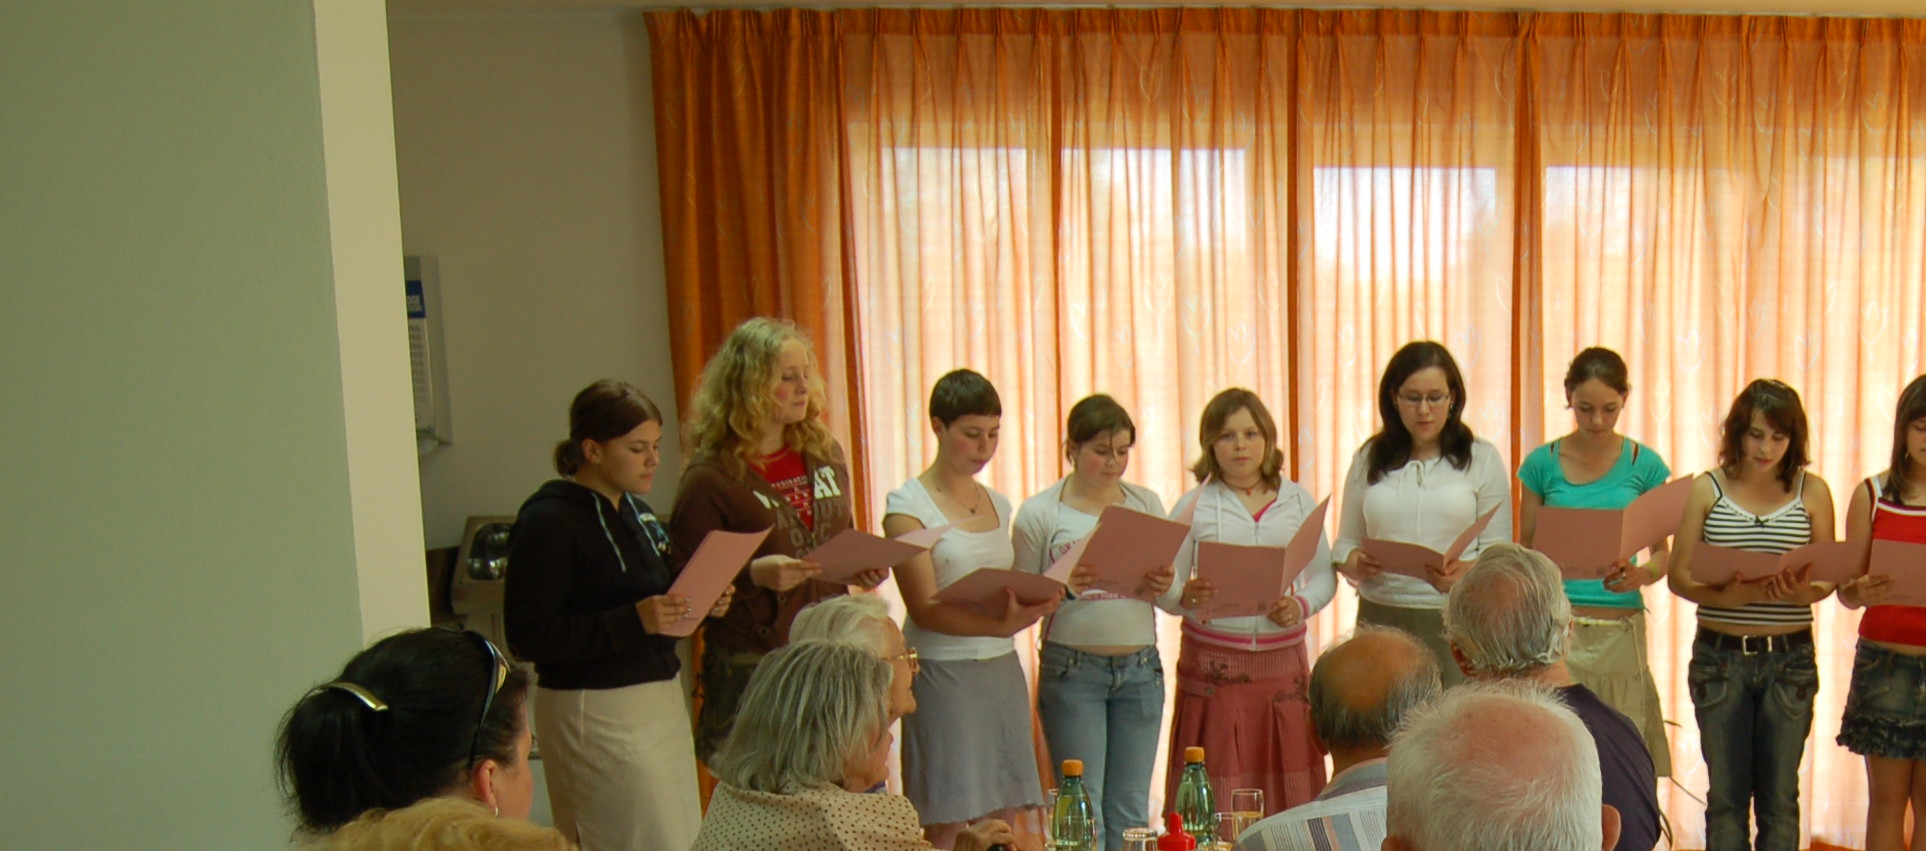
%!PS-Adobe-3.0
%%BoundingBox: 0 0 1926 851
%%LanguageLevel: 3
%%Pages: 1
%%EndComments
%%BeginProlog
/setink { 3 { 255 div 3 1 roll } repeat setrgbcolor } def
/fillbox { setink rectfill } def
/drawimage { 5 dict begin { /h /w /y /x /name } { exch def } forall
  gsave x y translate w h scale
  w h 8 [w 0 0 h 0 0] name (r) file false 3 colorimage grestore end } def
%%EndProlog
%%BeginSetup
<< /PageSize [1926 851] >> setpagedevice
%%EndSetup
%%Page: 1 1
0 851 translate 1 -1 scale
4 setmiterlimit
0 0 1926 851 255 255 255 fillbox
(assets/img1.rgb) 0 0 1926 851 drawimage
showpage
%%EOF
